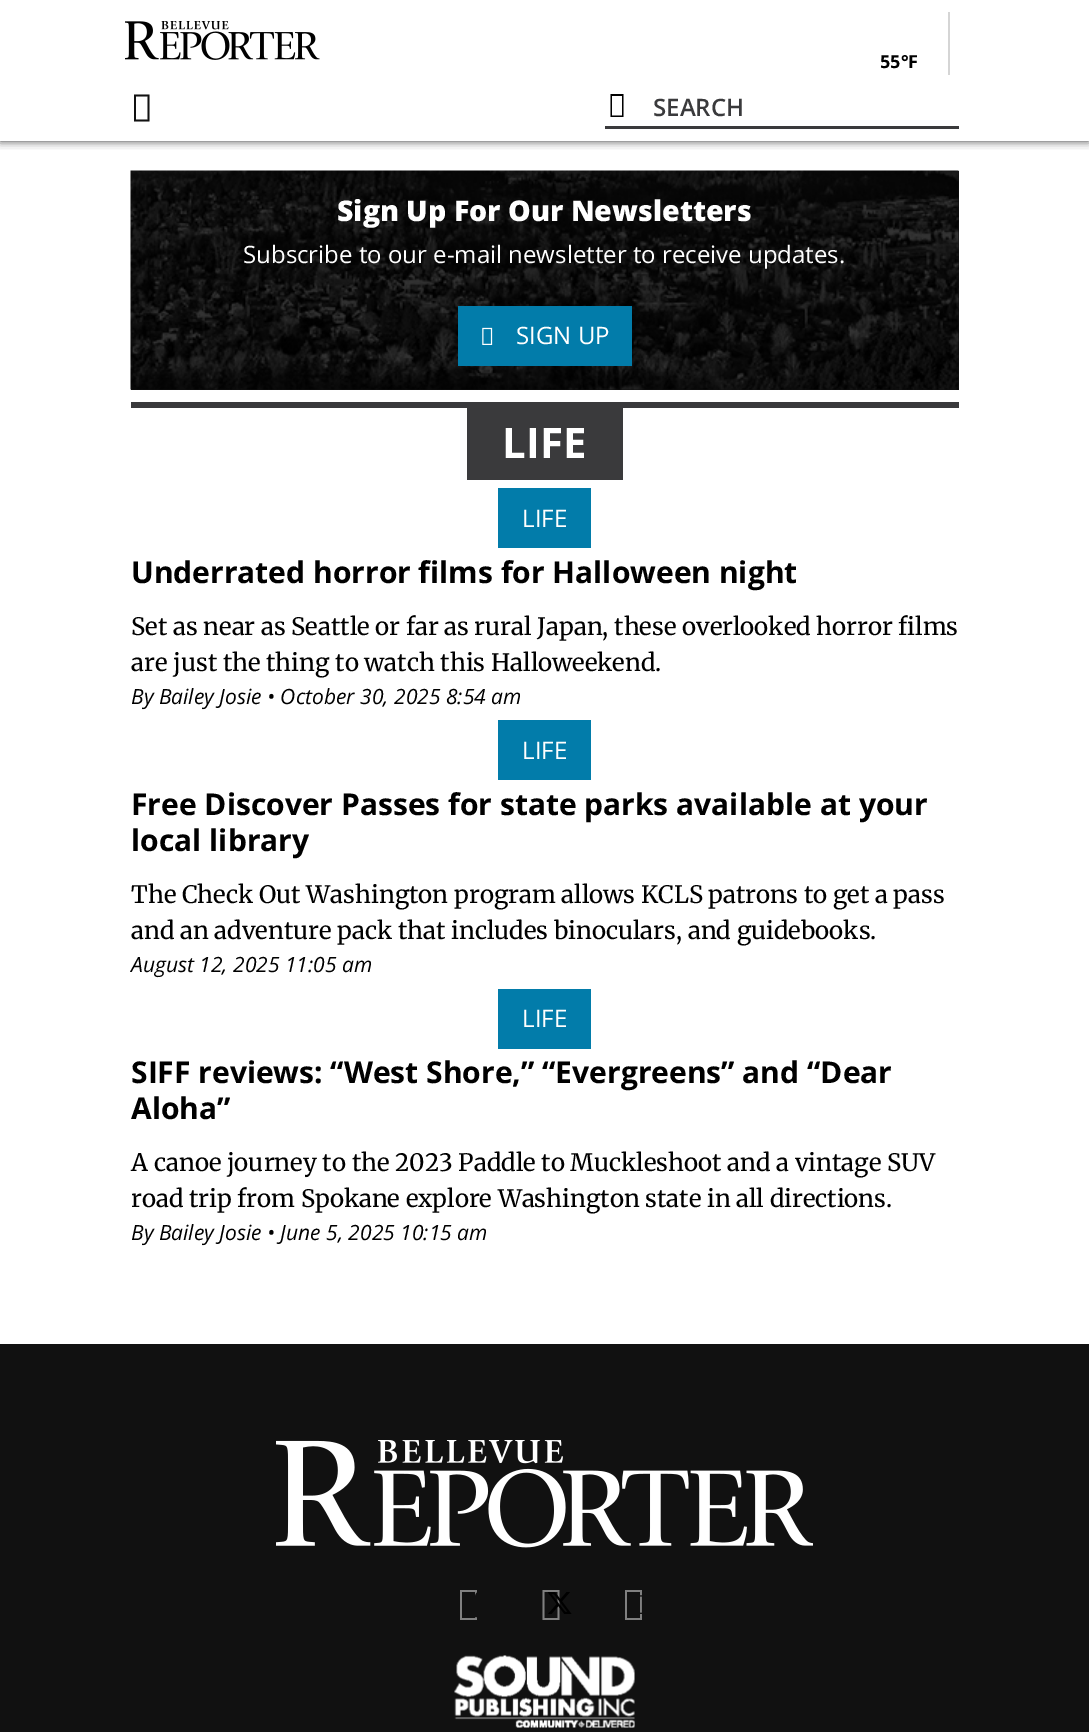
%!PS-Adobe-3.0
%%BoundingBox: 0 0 1089 1732
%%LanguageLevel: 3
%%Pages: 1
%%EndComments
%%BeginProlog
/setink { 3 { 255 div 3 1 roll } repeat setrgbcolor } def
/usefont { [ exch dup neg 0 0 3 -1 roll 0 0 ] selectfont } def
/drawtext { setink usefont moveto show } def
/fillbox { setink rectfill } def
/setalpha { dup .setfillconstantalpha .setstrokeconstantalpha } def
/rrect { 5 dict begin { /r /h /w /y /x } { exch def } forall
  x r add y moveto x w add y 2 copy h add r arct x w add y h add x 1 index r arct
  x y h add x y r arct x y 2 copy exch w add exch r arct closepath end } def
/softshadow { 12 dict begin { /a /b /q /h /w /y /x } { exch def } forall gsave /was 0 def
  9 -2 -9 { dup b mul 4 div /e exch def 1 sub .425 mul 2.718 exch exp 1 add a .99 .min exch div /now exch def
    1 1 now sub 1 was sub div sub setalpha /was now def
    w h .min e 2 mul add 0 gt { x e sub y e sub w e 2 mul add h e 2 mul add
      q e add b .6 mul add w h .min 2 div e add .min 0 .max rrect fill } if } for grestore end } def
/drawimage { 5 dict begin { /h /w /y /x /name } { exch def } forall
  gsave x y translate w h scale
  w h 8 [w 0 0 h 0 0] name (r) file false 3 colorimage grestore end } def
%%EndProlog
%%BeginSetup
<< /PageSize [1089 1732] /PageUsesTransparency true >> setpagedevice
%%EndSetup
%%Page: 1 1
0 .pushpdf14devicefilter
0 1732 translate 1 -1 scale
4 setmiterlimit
0 0 1089 1732 255 255 255 fillbox
gsave
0 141 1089 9 rectclip
58 58 60 setink
0 0 1089 141 0 4.5 1 softshadow
grestore
(assets/img1.rgb) 125 21 195 39 drawimage
948 12 2 63 213 213 213 fillbox
(55°F) 880 68 /OpenSans-Bold 18 0 0 0 drawtext
17 17 17 setink
134 121.5 moveto 134 94.5 lineto 149.5 94.5 lineto 149.5 121.5 lineto closepath 136 119.5 moveto 147.5 119.5 lineto 147.5 96.5 lineto 136 96.5 lineto closepath fill
0 0 0 setink
610.5 117 moveto 610.5 94 lineto 623.5 94 lineto 623.5 117 lineto closepath 612 115.5 moveto 622 115.5 lineto 622 96 lineto 612 96 lineto closepath fill
605 126 354 3 58 58 60 fillbox
(SEARCH) 653 116 /OpenSans-SemiBold 24 58 58 60 drawtext
131 171 828 219 17 17 17 fillbox
(assets/img2.rgb) 130 170 829 220 drawimage
(Sign Up For Our Newsletters) 337 221 /OpenSans-ExtraBold 28.5 255 255 255 drawtext
(Subscribe to our e-mail newsletter to receive updates.) 243 263 /OpenSans-Regular 24 255 255 255 drawtext
458 306 174 60 2 124 170 fillbox
(assets/img3.rgb) 482 327 11 18 drawimage
(SIGN UP) 516 344 /OpenSans-Regular 24 255 255 255 drawtext
131 402 828 6 58 58 60 fillbox
467 408 156 72 58 58 60 fillbox
(LIFE) 502 458 /OpenSans-Bold 42 255 255 255 drawtext
498 488 93 60 2 124 170 fillbox
(LIFE) 522 527 /OpenSans-Regular 24 255 255 255 drawtext
(Underrated horror films for Halloween night) 131 583 /OpenSans-Bold 30 0 0 0 drawtext
(Set as near as Seattle or far as rural Japan, these overlooked horror films) 131 635 /Merriweather-Regular 24 0 0 0 drawtext
(are just the thing to watch this Halloweekend.) 131 671 /Merriweather-Regular 24 0 0 0 drawtext
(By Bailey Josie • October 30, 2025 8:54 am) 131 704 /OpenSans-Italic 21 0 0 0 drawtext
498 720 93 60 2 124 170 fillbox
(LIFE) 522 759 /OpenSans-Regular 24 255 255 255 drawtext
(Free Discover Passes for state parks available at your) 131 815 /OpenSans-Bold 30 0 0 0 drawtext
(local library) 131 851 /OpenSans-Bold 30 0 0 0 drawtext
(The Check Out Washington program allows KCLS patrons to get a pass) 131 903 /Merriweather-Regular 24 0 0 0 drawtext
(and an adventure pack that includes binoculars, and guidebooks.) 131 939 /Merriweather-Regular 24 0 0 0 drawtext
(August 12, 2025 11:05 am) 131 972 /OpenSans-Italic 21 0 0 0 drawtext
498 989 93 60 2 124 170 fillbox
(LIFE) 522 1027 /OpenSans-Regular 24 255 255 255 drawtext
(SIFF reviews: “West Shore,” “Evergreens” and “Dear) 131 1083 /OpenSans-Bold 30 0 0 0 drawtext
(Aloha”) 131 1119 /OpenSans-Bold 30 0 0 0 drawtext
(A canoe journey to the 2023 Paddle to Muckleshoot and a vintage SUV) 131 1171 /Merriweather-Regular 24 0 0 0 drawtext
(road trip from Spokane explore Washington state in all directions.) 131 1207 /Merriweather-Regular 24 0 0 0 drawtext
(By Bailey Josie • June 5, 2025 10:15 am) 131 1240 /OpenSans-Italic 21 0 0 0 drawtext
0 1344 1089 388 17 17 17 fillbox
(assets/img4.rgb) 276 1440 537 108 drawimage
128 128 128 setink
460 1620 moveto 460 1590 lineto 477 1590 lineto 477 1620 lineto closepath 462 1618 moveto 475 1618 lineto 475 1592 lineto 462 1592 lineto closepath fill
(assets/img5.rgb) 475 1592 2 26 drawimage
542.5 1620 moveto 542.5 1590 lineto 559.5 1590 lineto 559.5 1620 lineto closepath 544.5 1618 moveto 557.5 1618 lineto 557.5 1592 lineto 544.5 1592 lineto closepath fill
(assets/img6.rgb) 548 1592 24 22 drawimage
625 1620 moveto 625 1590 lineto 642 1590 lineto 642 1620 lineto closepath 627 1618 moveto 640 1618 lineto 640 1592 lineto 627 1592 lineto closepath fill
(assets/img7.rgb) 640 1595 2 19 drawimage
(assets/img8.rgb) 454 1655 181 73 drawimage
.poppdf14devicefilter showpage
%%EOF
